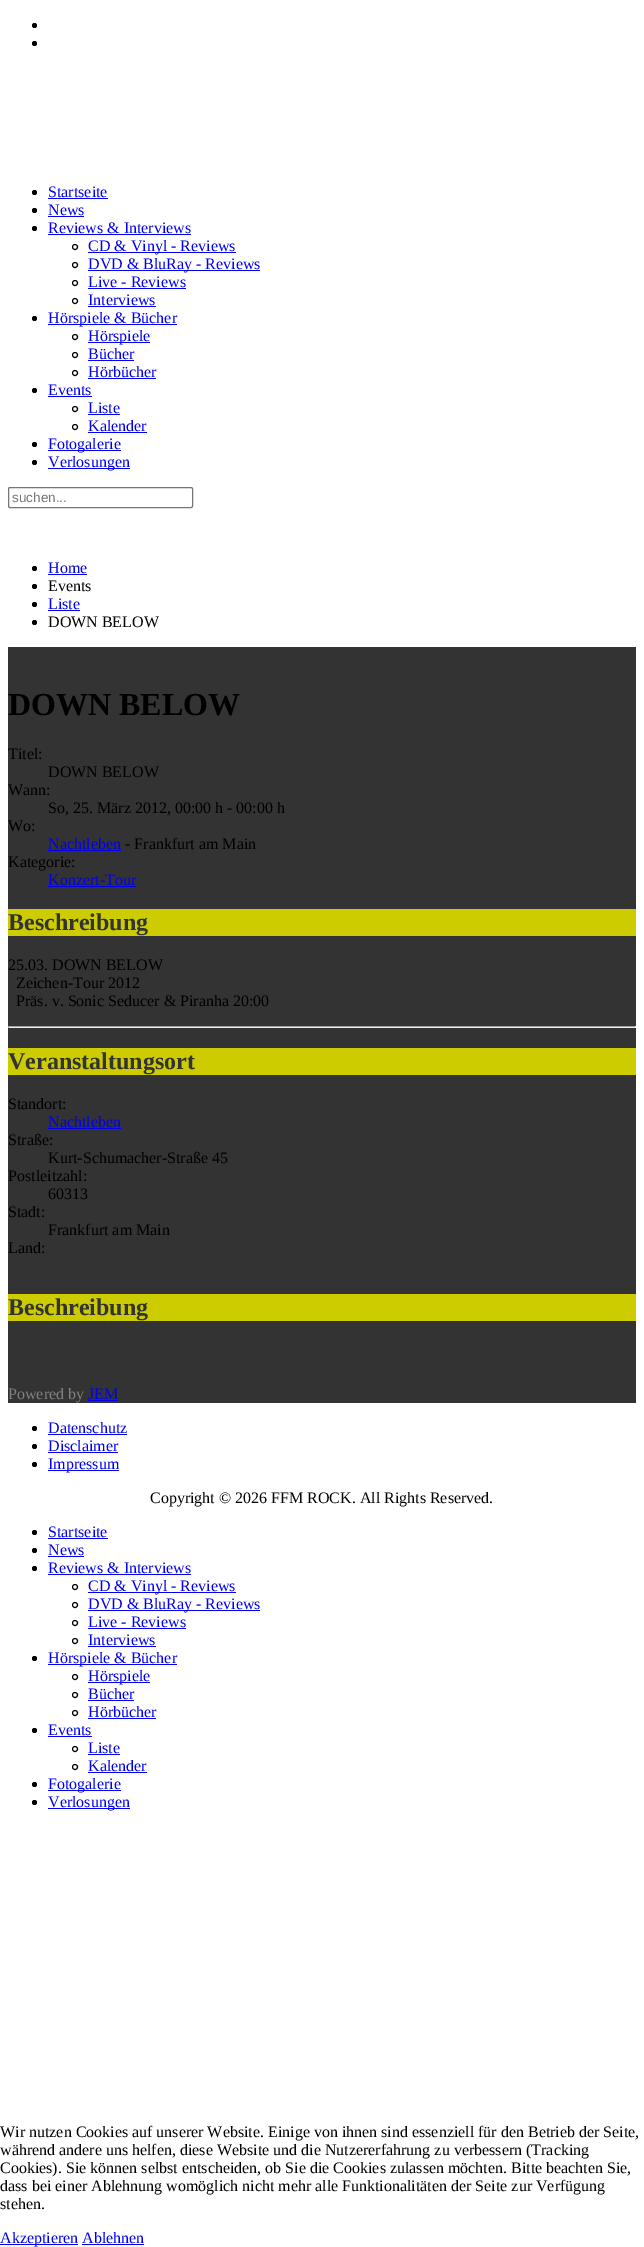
%!PS-Adobe-3.0
%%BoundingBox: 0 0 644 2247
%%LanguageLevel: 3
%%Pages: 1
%%EndComments
%%BeginProlog
/setink { 3 { 255 div 3 1 roll } repeat setrgbcolor } def
/usefont { [ exch dup neg 0 0 3 -1 roll 0 0 ] selectfont } def
/drawtext { setink usefont moveto show } def
/fillbox { setink rectfill } def
/disc { newpath 0 360 arc closepath } def
/rrect { 5 dict begin { /r /h /w /y /x } { exch def } forall
  x r add y moveto x w add y 2 copy h add r arct x w add y h add x 1 index r arct
  x y h add x y r arct x y 2 copy exch w add exch r arct closepath end } def
%%EndProlog
%%BeginSetup
<< /PageSize [644 2247] >> setpagedevice
%%EndSetup
%%Page: 1 1
0 2247 translate 1 -1 scale
4 setmiterlimit
0 0 644 2247 255 255 255 fillbox
0 0 0 setink
34.5 25.5 2.5 disc fill
34.5 43.5 2.5 disc fill
34.5 192.5 2.5 disc fill
(Startseite) 48 197 /LiberationSerif-Regular 16 0 0 238 drawtext
48 198 60 1 0 0 238 fillbox
0 0 0 setink
34.5 210.5 2.5 disc fill
(News) 48 215 /LiberationSerif-Regular 16 0 0 238 drawtext
48 216 36 1 0 0 238 fillbox
0 0 0 setink
34.5 228.5 2.5 disc fill
(Reviews & Interviews) 48 233 /LiberationSerif-Regular 16 0 0 238 drawtext
48 234 143 1 0 0 238 fillbox
0 0 0 setink
75 247 2.5 disc stroke
88 252 148 1 0 0 238 fillbox
(CD & Vinyl - Reviews) 88 251 /LiberationSerif-Regular 16 0 0 238 drawtext
0 0 0 setink
75 265 2.5 disc stroke
88 270 172 1 0 0 238 fillbox
(DVD & BluRay - Reviews) 88 269 /LiberationSerif-Regular 16 0 0 238 drawtext
0 0 0 setink
75 283 2.5 disc stroke
(Live - Reviews) 88 287 /LiberationSerif-Regular 16 0 0 238 drawtext
88 288 98 1 0 0 238 fillbox
0 0 0 setink
75 301 2.5 disc stroke
(Interviews) 88 305 /LiberationSerif-Regular 16 0 0 238 drawtext
88 306 68 1 0 0 238 fillbox
0 0 0 setink
34.5 318.5 2.5 disc fill
48 324 129 1 0 0 238 fillbox
(Hörspiele & Bücher) 48 323 /LiberationSerif-Regular 16 0 0 238 drawtext
0 0 0 setink
75 337 2.5 disc stroke
88 342 62 1 0 0 238 fillbox
(Hörspiele) 88 341 /LiberationSerif-Regular 16 0 0 238 drawtext
0 0 0 setink
75 355 2.5 disc stroke
(Bücher) 88 359 /LiberationSerif-Regular 16 0 0 238 drawtext
88 360 46 1 0 0 238 fillbox
0 0 0 setink
75 373 2.5 disc stroke
(Hörbücher) 88 377 /LiberationSerif-Regular 16 0 0 238 drawtext
88 378 68 1 0 0 238 fillbox
0 0 0 setink
34.5 390.5 2.5 disc fill
(Events) 48 395 /LiberationSerif-Regular 16 0 0 238 drawtext
48 396 44 1 0 0 238 fillbox
0 0 0 setink
75 409 2.5 disc stroke
(Liste) 88 413 /LiberationSerif-Regular 16 0 0 238 drawtext
88 414 32 1 0 0 238 fillbox
0 0 0 setink
75 427 2.5 disc stroke
(Kalender) 88 431 /LiberationSerif-Regular 16 0 0 238 drawtext
88 432 59 1 0 0 238 fillbox
0 0 0 setink
34.5 444.5 2.5 disc fill
48 450 73 1 0 0 238 fillbox
(Fotogalerie) 48 449 /LiberationSerif-Regular 16 0 0 238 drawtext
0 0 0 setink
34.5 462.5 2.5 disc fill
48 468 82 1 0 0 238 fillbox
(Verlosungen) 48 467 /LiberationSerif-Regular 16 0 0 238 drawtext
118 118 118 setink
8.5 487.5 184 20 1.5 rrect stroke
(suchen...) 12 502 /LiberationSans-Regular 13.5 117 117 117 drawtext
0 0 0 setink
34.5 568.5 2.5 disc fill
(Home) 48 573 /LiberationSerif-Regular 16 0 0 238 drawtext
48 574 39 1 0 0 238 fillbox
0 0 0 setink
34.5 586.5 2.5 disc fill
(Events) 48 591 /LiberationSerif-Regular 16 0 0 0 drawtext
34.5 604.5 2.5 disc fill
(Liste) 48 609 /LiberationSerif-Regular 16 0 0 238 drawtext
48 610 32 1 0 0 238 fillbox
0 0 0 setink
34.5 622.5 2.5 disc fill
(DOWN BELOW) 48 627 /LiberationSerif-Regular 16 0 0 0 drawtext
8 647 628 756 51 51 51 fillbox
(DOWN BELOW) 8 715 /LiberationSerif-Bold 32 0 0 0 drawtext
(Titel:) 8 759 /LiberationSerif-Regular 16 0 0 0 drawtext
(DOWN BELOW) 48 777 /LiberationSerif-Regular 16 0 0 0 drawtext
(Wann:) 8 795 /LiberationSerif-Regular 16 0 0 0 drawtext
(So, 25. März 2012, 00:00 h - 00:00 h) 48 813 /LiberationSerif-Regular 16 0 0 0 drawtext
(Wo:) 8 831 /LiberationSerif-Regular 16 0 0 0 drawtext
(Nachtleben) 48 849 /LiberationSerif-Regular 16 0 0 238 drawtext
48 850 73 1 0 0 238 fillbox
(- Frankfurt am Main) 125 849 /LiberationSerif-Regular 16 0 0 0 drawtext
(Kategorie:) 8 867 /LiberationSerif-Regular 16 0 0 0 drawtext
(Konzert-Tour) 48 885 /LiberationSerif-Regular 16 0 0 238 drawtext
48 886 88 1 0 0 238 fillbox
8 909 628 27 204 204 0 fillbox
(Beschreibung) 8 930 /LiberationSerif-Bold 24 51 51 51 drawtext
(25.03. DOWN BELOW) 8 970 /LiberationSerif-Regular 16 0 0 0 drawtext
(Zeichen-Tour 2012) 16 988 /LiberationSerif-Regular 16 0 0 0 drawtext
(Präs. v. Sonic Seducer & Piranha 20:00) 16 1006 /LiberationSerif-Regular 16 0 0 0 drawtext
8 1026 628 1 159 159 159 fillbox
635 1026 1 2 238 238 238 fillbox
8 1027 628 1 238 238 238 fillbox
8 1026 1 2 159 159 159 fillbox
8 1048 628 27 204 204 0 fillbox
(Veranstaltungsort) 8 1069 /LiberationSerif-Bold 24 51 51 51 drawtext
(Standort:) 8 1109 /LiberationSerif-Regular 16 0 0 0 drawtext
(Nachtleben) 48 1127 /LiberationSerif-Regular 16 0 0 238 drawtext
48 1128 73 1 0 0 238 fillbox
(Straße:) 8 1145 /LiberationSerif-Regular 16 0 0 0 drawtext
(Kurt-Schumacher-Straße 45) 48 1163 /LiberationSerif-Regular 16 0 0 0 drawtext
(Postleitzahl:) 8 1181 /LiberationSerif-Regular 16 0 0 0 drawtext
(60313) 48 1199 /LiberationSerif-Regular 16 0 0 0 drawtext
(Stadt:) 8 1217 /LiberationSerif-Regular 16 0 0 0 drawtext
(Frankfurt am Main) 48 1235 /LiberationSerif-Regular 16 0 0 0 drawtext
(Land:) 8 1253 /LiberationSerif-Regular 16 0 0 0 drawtext
8 1294 628 27 204 204 0 fillbox
(Beschreibung) 8 1315 /LiberationSerif-Bold 24 51 51 51 drawtext
(Powered by) 8 1399 /LiberationSerif-Regular 16 128 128 128 drawtext
(JEM) 88 1399 /LiberationSerif-Regular 16 0 0 238 drawtext
88 1400 30 1 0 0 238 fillbox
0 0 0 setink
34.5 1428.5 2.5 disc fill
(Datenschutz) 48 1433 /LiberationSerif-Regular 16 0 0 238 drawtext
48 1434 79 1 0 0 238 fillbox
0 0 0 setink
34.5 1446.5 2.5 disc fill
(Disclaimer) 48 1451 /LiberationSerif-Regular 16 0 0 238 drawtext
48 1452 70 1 0 0 238 fillbox
0 0 0 setink
34.5 1464.5 2.5 disc fill
48 1470 71 1 0 0 238 fillbox
(Impressum) 48 1469 /LiberationSerif-Regular 16 0 0 238 drawtext
(Copyright © 2026 FFM ROCK. All Rights Reserved.) 150 1503 /LiberationSerif-Regular 16 0 0 0 drawtext
34.5 1532.5 2.5 disc fill
(Startseite) 48 1537 /LiberationSerif-Regular 16 0 0 238 drawtext
48 1538 60 1 0 0 238 fillbox
0 0 0 setink
34.5 1550.5 2.5 disc fill
(News) 48 1555 /LiberationSerif-Regular 16 0 0 238 drawtext
48 1556 36 1 0 0 238 fillbox
0 0 0 setink
34.5 1568.5 2.5 disc fill
(Reviews & Interviews) 48 1573 /LiberationSerif-Regular 16 0 0 238 drawtext
48 1574 143 1 0 0 238 fillbox
0 0 0 setink
75 1587 2.5 disc stroke
88 1592 148 1 0 0 238 fillbox
(CD & Vinyl - Reviews) 88 1591 /LiberationSerif-Regular 16 0 0 238 drawtext
0 0 0 setink
75 1605 2.5 disc stroke
88 1610 172 1 0 0 238 fillbox
(DVD & BluRay - Reviews) 88 1609 /LiberationSerif-Regular 16 0 0 238 drawtext
0 0 0 setink
75 1623 2.5 disc stroke
(Live - Reviews) 88 1627 /LiberationSerif-Regular 16 0 0 238 drawtext
88 1628 98 1 0 0 238 fillbox
0 0 0 setink
75 1641 2.5 disc stroke
(Interviews) 88 1645 /LiberationSerif-Regular 16 0 0 238 drawtext
88 1646 68 1 0 0 238 fillbox
0 0 0 setink
34.5 1658.5 2.5 disc fill
48 1664 129 1 0 0 238 fillbox
(Hörspiele & Bücher) 48 1663 /LiberationSerif-Regular 16 0 0 238 drawtext
0 0 0 setink
75 1677 2.5 disc stroke
88 1682 62 1 0 0 238 fillbox
(Hörspiele) 88 1681 /LiberationSerif-Regular 16 0 0 238 drawtext
0 0 0 setink
75 1695 2.5 disc stroke
(Bücher) 88 1699 /LiberationSerif-Regular 16 0 0 238 drawtext
88 1700 46 1 0 0 238 fillbox
0 0 0 setink
75 1713 2.5 disc stroke
(Hörbücher) 88 1717 /LiberationSerif-Regular 16 0 0 238 drawtext
88 1718 68 1 0 0 238 fillbox
0 0 0 setink
34.5 1730.5 2.5 disc fill
(Events) 48 1735 /LiberationSerif-Regular 16 0 0 238 drawtext
48 1736 44 1 0 0 238 fillbox
0 0 0 setink
75 1749 2.5 disc stroke
(Liste) 88 1753 /LiberationSerif-Regular 16 0 0 238 drawtext
88 1754 32 1 0 0 238 fillbox
0 0 0 setink
75 1767 2.5 disc stroke
(Kalender) 88 1771 /LiberationSerif-Regular 16 0 0 238 drawtext
88 1772 59 1 0 0 238 fillbox
0 0 0 setink
34.5 1784.5 2.5 disc fill
48 1790 73 1 0 0 238 fillbox
(Fotogalerie) 48 1789 /LiberationSerif-Regular 16 0 0 238 drawtext
0 0 0 setink
34.5 1802.5 2.5 disc fill
48 1808 82 1 0 0 238 fillbox
(Verlosungen) 48 1807 /LiberationSerif-Regular 16 0 0 238 drawtext
(Wir nutzen Cookies auf unserer Website. Einige von ihnen sind essenziell für den Betrieb der Seite,) 0 2137 /LiberationSerif-Regular 16 0 0 0 drawtext
(während andere uns helfen, diese Website und die Nutzererfahrung zu verbessern \(Tracking) 0 2155 /LiberationSerif-Regular 16 0 0 0 drawtext
(Cookies\). Sie können selbst entscheiden, ob Sie die Cookies zulassen möchten. Bitte beachten Sie,) 0 2173 /LiberationSerif-Regular 16 0 0 0 drawtext
(dass bei einer Ablehnung womöglich nicht mehr alle Funktionalitäten der Seite zur Verfügung) 0 2191 /LiberationSerif-Regular 16 0 0 0 drawtext
(stehen.) 0 2209 /LiberationSerif-Regular 16 0 0 0 drawtext
0 2244 78 1 0 0 238 fillbox
(Akzeptieren Ablehnen) 0 2243 /LiberationSerif-Regular 16 0 0 238 drawtext
82 2244 62 1 0 0 238 fillbox
showpage
%%EOF
